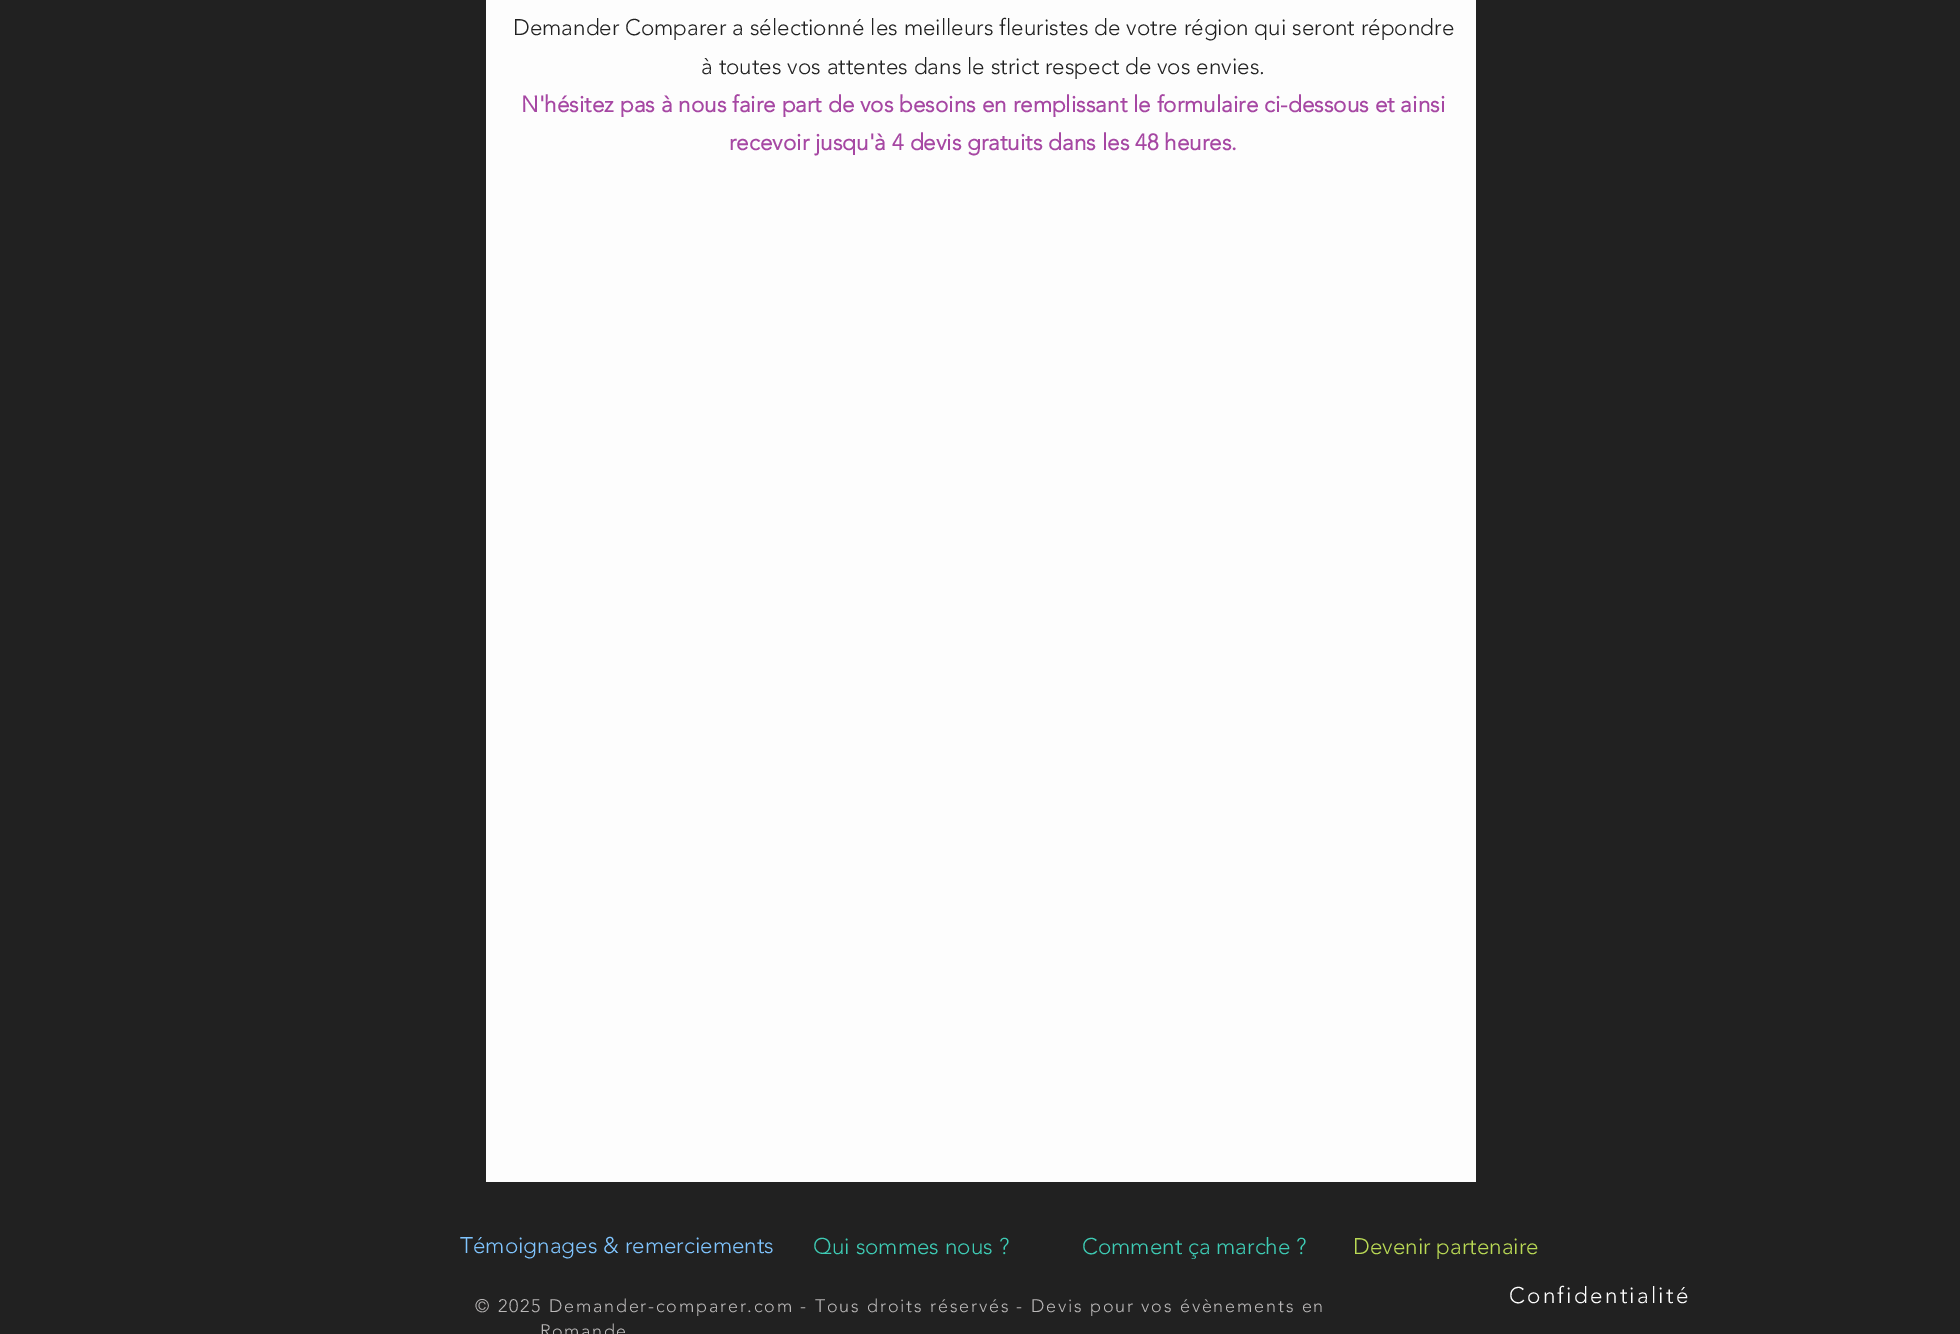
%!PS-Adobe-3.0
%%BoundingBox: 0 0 1960 1334
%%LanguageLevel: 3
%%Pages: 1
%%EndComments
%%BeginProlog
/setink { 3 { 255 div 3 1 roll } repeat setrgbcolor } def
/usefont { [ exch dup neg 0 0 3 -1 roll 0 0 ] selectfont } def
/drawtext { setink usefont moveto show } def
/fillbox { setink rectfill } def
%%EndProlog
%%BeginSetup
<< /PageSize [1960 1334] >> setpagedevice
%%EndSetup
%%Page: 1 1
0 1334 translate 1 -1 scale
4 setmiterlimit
0 0 1960 1334 33 33 33 fillbox
486 0 990 1182 253 253 253 fillbox
(Demander Comparer a sélectionné les meilleurs fleuristes de votre région qui seront répondre) 513 35 /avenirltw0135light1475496-Light 22.5 33 33 33 drawtext
(à toutes vos attentes dans le strict respect de vos envies.) 701 74 /avenirltw0135light1475496-Light 22.5 33 33 33 drawtext
(N'hésitez pas à nous faire part de vos besoins en remplissant le formulaire ci-dessous et ainsi) 521 112 /avenirltw0135light1475496-Bold 22.5 166 71 163 drawtext
(recevoir jusqu'à 4 devis gratuits dans les 48 heures.) 729 150 /avenirltw0135light1475496-Bold 22.5 166 71 163 drawtext
(Témoignages & remerciements) 460 1253 /avenirltw0135light1475496-Light 22.5 128 197 255 drawtext
(Qui sommes nous ?) 813 1254 /avenirltw0135light1475496-Light 22.5 62 204 181 drawtext
(Comment ça marche ?) 1082 1254 /avenirltw0135light1475496-Light 22.5 62 204 181 drawtext
(Devenir partenaire) 1353 1254 /avenirltw0135light1475496-Light 22.5 186 218 85 drawtext
/avenirltw0135light1475496-Light 18 usefont
186 184 184 setink
475 1312 moveto 1.8 0 (© 2025 Demander-comparer.com - Tous droits réservés - Devis pour vos évènements en) ashow
540 1337 moveto 1.5 0 (Romande) ashow
/avenirltw0135light1475496-Light 22.5 usefont
255 255 255 setink
1509 1303 moveto 2.25 0 (Confidentialité) ashow
showpage
%%EOF
